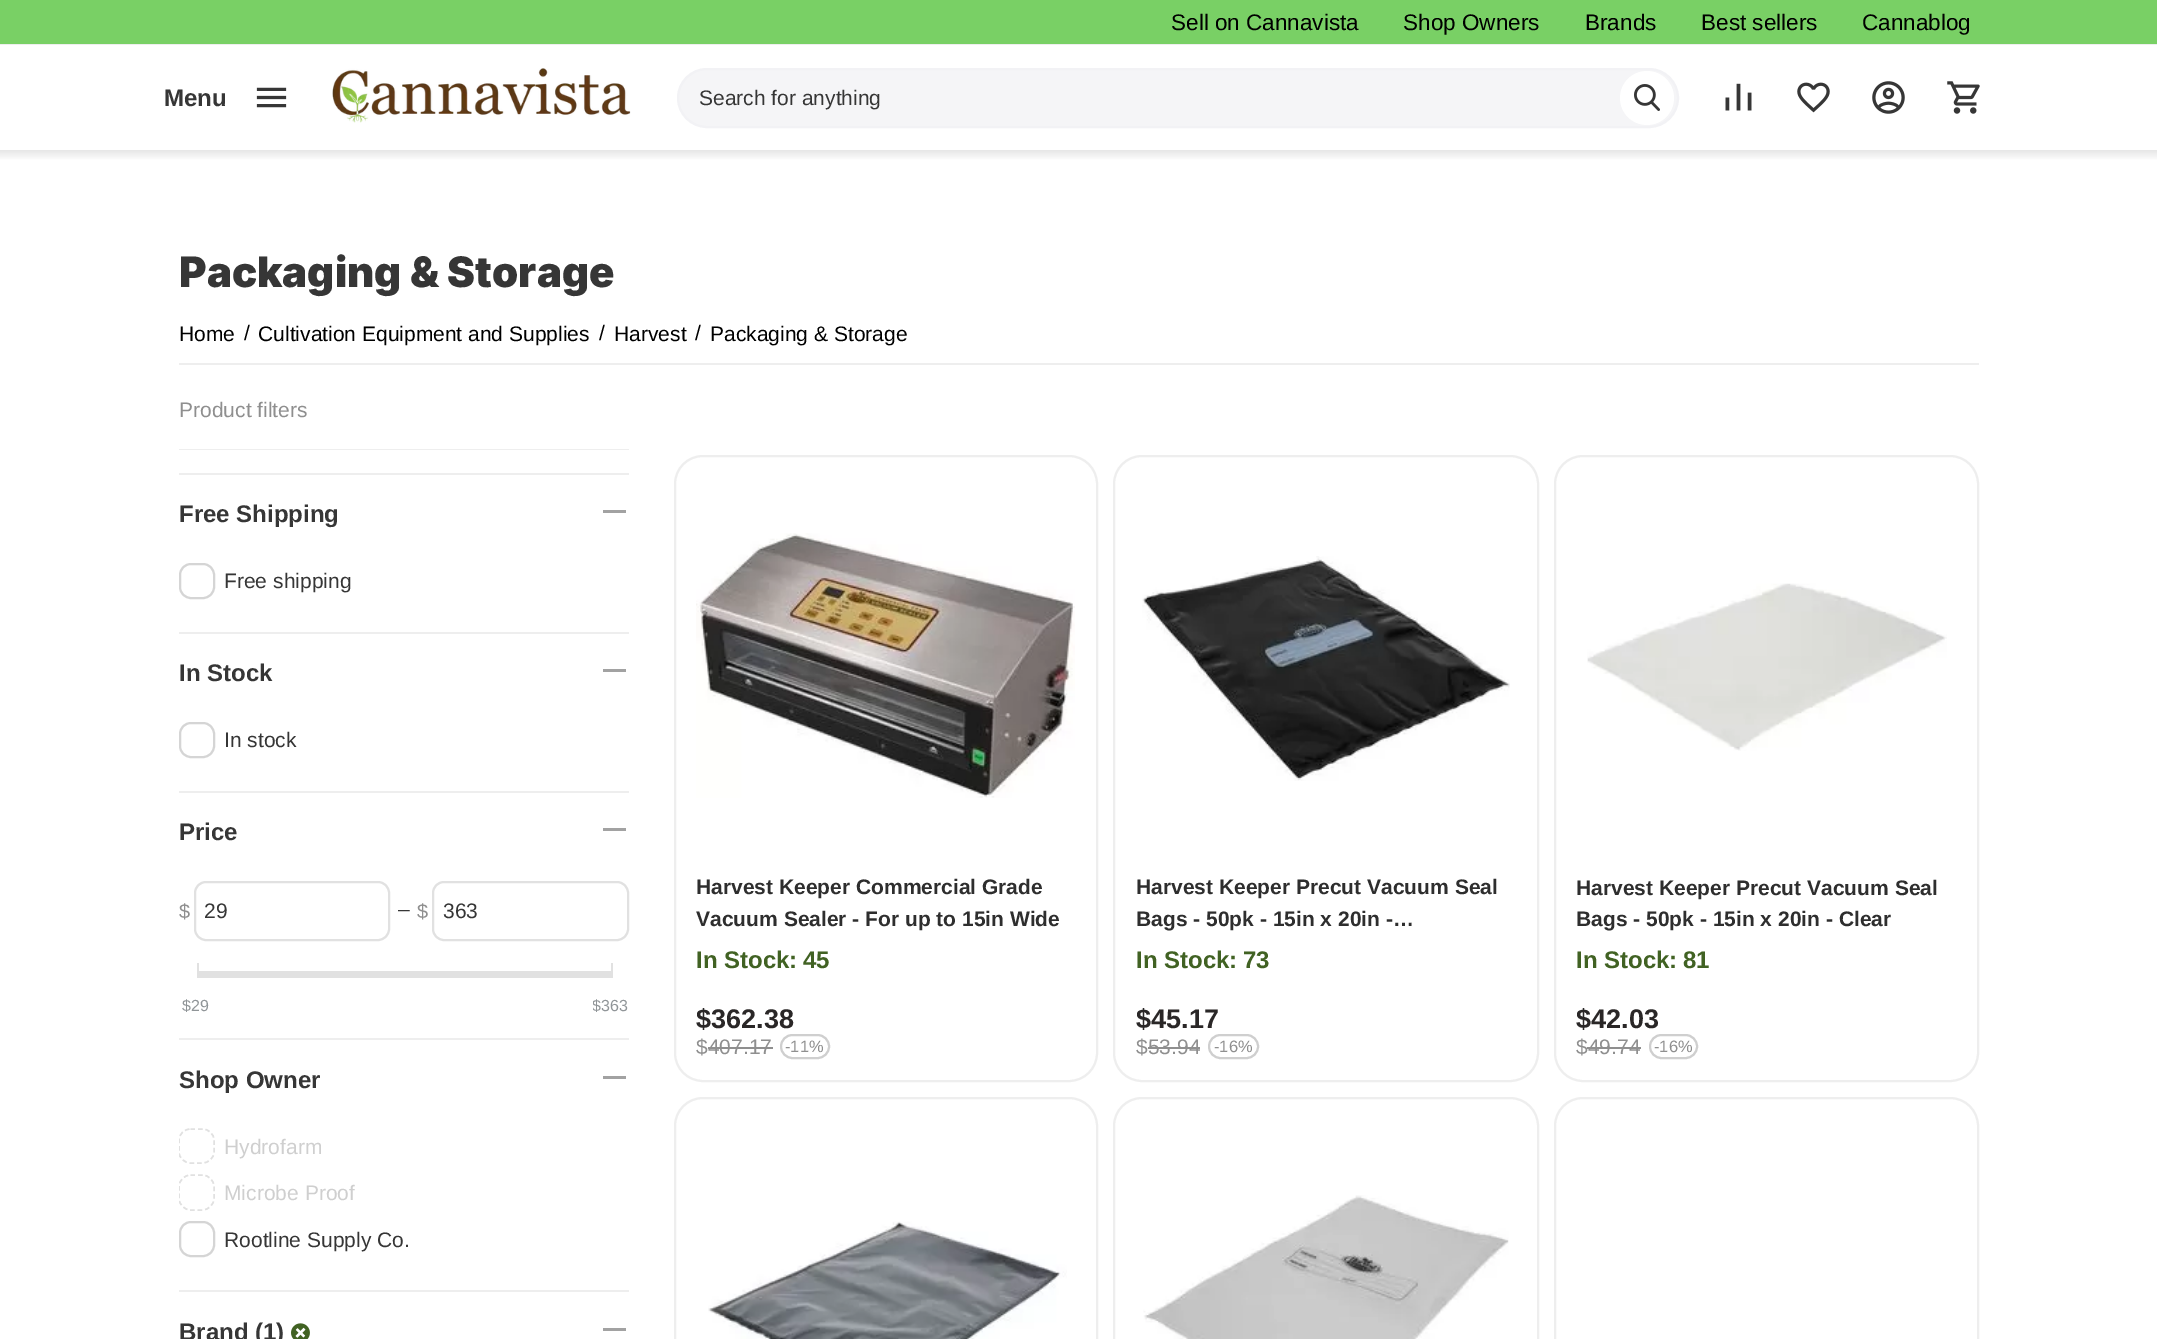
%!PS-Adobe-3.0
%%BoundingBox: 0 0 2168 1339
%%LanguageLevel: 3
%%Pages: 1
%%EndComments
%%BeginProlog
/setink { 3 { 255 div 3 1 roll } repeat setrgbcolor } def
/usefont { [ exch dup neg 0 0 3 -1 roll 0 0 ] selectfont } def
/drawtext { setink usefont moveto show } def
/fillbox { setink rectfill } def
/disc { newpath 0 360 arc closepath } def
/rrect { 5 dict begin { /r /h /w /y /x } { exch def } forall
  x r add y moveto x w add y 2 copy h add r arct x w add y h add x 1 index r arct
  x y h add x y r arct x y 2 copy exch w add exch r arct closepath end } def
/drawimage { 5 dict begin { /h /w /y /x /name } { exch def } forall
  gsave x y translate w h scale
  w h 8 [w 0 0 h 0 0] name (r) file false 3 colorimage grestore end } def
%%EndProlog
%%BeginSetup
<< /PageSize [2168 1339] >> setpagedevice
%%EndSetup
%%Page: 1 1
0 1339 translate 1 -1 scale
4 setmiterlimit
0 0 2168 1339 255 255 255 fillbox
0 0 2157 44 121 208 101 fillbox
0 44 2157 1 238 238 238 fillbox
(Sell on Cannavista) 1171 30 /LiberationSans-Regular 22.5 0 0 0 drawtext
(Shop Owners) 1403 30 /LiberationSans-Regular 22.5 0 0 0 drawtext
(Brands) 1585 30 /LiberationSans-Regular 22.5 0 0 0 drawtext
(Best sellers) 1701 30 /LiberationSans-Regular 22.5 0 0 0 drawtext
(Cannablog) 1862 30 /LiberationSans-Regular 22.5 0 0 0 drawtext
(Menu) 164 106 /LiberationSans-Bold 24 54 54 54 drawtext
(assets/img1.rgb) 256 87 31 21 drawimage
(assets/img2.rgb) 332 68 299 55 drawimage
245 245 247 setink
678 69 1000 58 29 rrect gsave fill grestore
242 242 245 setink
2 setlinewidth
stroke
(Search for anything) 699 105 /LiberationSans-Regular 21 54 54 54 drawtext
255 255 255 setink
1647 98 27 disc fill
(assets/img3.rgb) 1634 84 26 27 drawimage
(assets/img4.rgb) 1725 83 27 28 drawimage
(assets/img5.rgb) 1797 82 33 31 drawimage
(assets/img6.rgb) 1872 81 33 33 drawimage
(assets/img7.rgb) 1947 81 33 33 drawimage
gsave 0 150 moveto 2157 150 lineto 2157 160 lineto 0 160 lineto closepath clip newpath
<< /ShadingType 2 /ColorSpace /DeviceRGB /Coords [1079 150 1079 161] /Extend [true true] /Function << /FunctionType 2 /Domain [0 1] /C0 [0.902 0.902 0.902] /C1 [1 1 1] /N 1 >> >> shfill grestore
(Packaging & Storage) 179 287 /Inter-Black 42 54 54 54 drawtext
179 363 1800 2 238 238 238 fillbox
(Home) 179 341 /LiberationSans-Regular 21 0 0 0 drawtext
(/) 244 340 /LiberationSans-Regular 21 0 0 0 drawtext
(Cultivation Equipment and Supplies) 258 341 /LiberationSans-Regular 21 0 0 0 drawtext
(/) 599 340 /LiberationSans-Regular 21 0 0 0 drawtext
(Harvest) 614 341 /LiberationSans-Regular 21 0 0 0 drawtext
(/) 695 340 /LiberationSans-Regular 21 0 0 0 drawtext
(Packaging & Storage) 710 341 /LiberationSans-Regular 21 0 0 0 drawtext
179 449 450 1 238 238 238 fillbox
(Product filters) 179 417 /LiberationSans-Regular 21 143 143 143 drawtext
179 473 450 2 238 238 238 fillbox
(Free Shipping) 179 522 /LiberationSans-Bold 24 54 54 54 drawtext
603 510 23 3 162 162 162 fillbox
213 213 213 setink
180 564 34 34 11 rrect stroke
(Free shipping) 224 588 /LiberationSans-Regular 21 54 54 54 drawtext
179 632 450 2 238 238 238 fillbox
(In Stock) 179 681 /LiberationSans-Bold 24 54 54 54 drawtext
603 669 23 3 162 162 162 fillbox
213 213 213 setink
180 723 34 34 11 rrect stroke
(In stock) 224 747 /LiberationSans-Regular 21 54 54 54 drawtext
179 791 450 2 238 238 238 fillbox
(Price) 179 840 /LiberationSans-Bold 24 54 54 54 drawtext
603 828 23 3 162 162 162 fillbox
($) 179 918 /LiberationSans-Regular 20 143 143 143 drawtext
225 225 225 setink
195 882 194 58 11 rrect stroke
(29) 204 918 /LiberationSans-Regular 21 54 54 54 drawtext
(–) 398 916 /LiberationSans-Regular 21 54 54 54 drawtext
($) 417 918 /LiberationSans-Regular 20 143 143 143 drawtext
225 225 225 setink
433 882 195 58 11 rrect stroke
(363) 443 918 /LiberationSans-Regular 21 54 54 54 drawtext
197 971 414 7 225 225 225 fillbox
197 963 2 15 225 225 225 fillbox
($29) 182 1011 /LiberationSans-Regular 16 144 149 152 drawtext
611 963 2 15 225 225 225 fillbox
gsave
593 995 34 24 rectclip
($) 592 1011 /LiberationSans-Regular 16 144 149 152 drawtext
grestore
(363) 601 1011 /LiberationSans-Regular 16 144 149 152 drawtext
179 1038 450 2 238 238 238 fillbox
(Shop Owner) 179 1088 /LiberationSans-Bold 24 54 54 54 drawtext
603 1076 23 3 162 162 162 fillbox
gsave
179 1128 450 140 rectclip
225 225 225 setink
1.5 setlinewidth
[4.5 3] 0 setdash
190.5 1129 moveto 202.5 1129 lineto 208.5 1129 214 1134 214 1140 curveto 214 1152 lineto 214 1158 208.5 1163 202.5 1163 curveto 190.5 1163 lineto 184.5 1163 179 1158 179 1152 curveto 179 1140 lineto 179 1134 184.5 1129 190.5 1129 curveto closepath stroke
grestore
(Hydrofarm) 224 1154 /LiberationSans-Regular 21 207 207 207 drawtext
gsave
179 1128 450 140 rectclip
225 225 225 setink
1.5 setlinewidth
[4.5 3] 0 setdash
190.5 1175 moveto 202.5 1175 lineto 208.5 1175 214 1180.5 214 1186.5 curveto 214 1198.5 lineto 214 1204.5 208.5 1210 202.5 1210 curveto 190.5 1210 lineto 184.5 1210 179 1204.5 179 1198.5 curveto 179 1186.5 lineto 179 1180.5 184.5 1175 190.5 1175 curveto closepath stroke
grestore
(Microbe Proof) 224 1200 /LiberationSans-Regular 21 207 207 207 drawtext
213 213 213 setink
180 1222 34 34 11 rrect stroke
(Rootline Supply Co.) 224 1247 /LiberationSans-Regular 21 54 54 54 drawtext
179 1290 450 2 238 238 238 fillbox
(Brand \(1\)) 179 1340 /LiberationSans-Bold 24 54 54 54 drawtext
(assets/img8.rgb) 291 1323 19 16 drawimage
603 1328 23 3 162 162 162 fillbox
238 238 238 setink
675 456 422 625 28 rrect stroke
(assets/img9.rgb) 696 533 379 265 drawimage
(Harvest Keeper Commercial Grade) 696 894 /LiberationSans-Bold 21 46 46 46 drawtext
(Vacuum Sealer - For up to 15in Wide) 696 926 /LiberationSans-Bold 21 46 46 46 drawtext
(In Stock:) 696 968 /LiberationSans-Bold 24 65 98 35 drawtext
(45) 803 968 /LiberationSans-Bold 24 65 98 35 drawtext
($362.38) 696 1028 /LiberationSans-Bold 27 42 39 39 drawtext
($407.17) 696 1054 /LiberationSans-Regular 21 143 143 143 drawtext
708 1047 65 2 143 143 143 fillbox
207 207 207 setink
781 1035 48 23 11.5 rrect stroke
(-11%) 785 1052 /LiberationSans-Regular 16.5 143 143 143 drawtext
238 238 238 setink
1114 456 424 625 28 rrect stroke
(assets/img10.rgb) 1142 556 368 225 drawimage
(Harvest Keeper Precut Vacuum Seal) 1136 894 /LiberationSans-Bold 21 46 46 46 drawtext
(Bags - 50pk - 15in x 20in -…) 1136 926 /LiberationSans-Bold 21 46 46 46 drawtext
(In Stock:) 1136 968 /LiberationSans-Bold 24 65 98 35 drawtext
(73) 1243 968 /LiberationSans-Bold 24 65 98 35 drawtext
($45.17) 1136 1028 /LiberationSans-Bold 27 42 39 39 drawtext
($53.94) 1136 1054 /LiberationSans-Regular 21 143 143 143 drawtext
1148 1047 52 2 143 143 143 fillbox
207 207 207 setink
1209 1035 49 23 11.5 rrect stroke
(-16%) 1214 1052 /LiberationSans-Regular 16.5 143 143 143 drawtext
238 238 238 setink
1555 456 423 625 28 rrect stroke
(assets/img11.rgb) 1587 583 360 168 drawimage
(Harvest Keeper Precut Vacuum Seal) 1576 895 /LiberationSans-Bold 21 46 46 46 drawtext
(Bags - 50pk - 15in x 20in - Clear) 1576 926 /LiberationSans-Bold 21 46 46 46 drawtext
(In Stock:) 1576 968 /LiberationSans-Bold 24 65 98 35 drawtext
(81) 1683 968 /LiberationSans-Bold 24 65 98 35 drawtext
($42.03) 1576 1028 /LiberationSans-Bold 27 42 39 39 drawtext
($49.74) 1576 1054 /LiberationSans-Regular 21 143 143 143 drawtext
1587 1047 54 2 143 143 143 fillbox
207 207 207 setink
1650 1035 47 23 11.5 rrect stroke
(-16%) 1654 1052 /LiberationSans-Regular 16.5 143 143 143 drawtext
238 238 238 setink
675 1098 422 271 28 rrect stroke
(assets/img12.rgb) 708 1221 359 118 drawimage
1114 1098 424 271 28 rrect stroke
(assets/img13.rgb) 1143 1195 366 144 drawimage
1555 1098 423 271 28 rrect stroke
showpage
%%EOF
